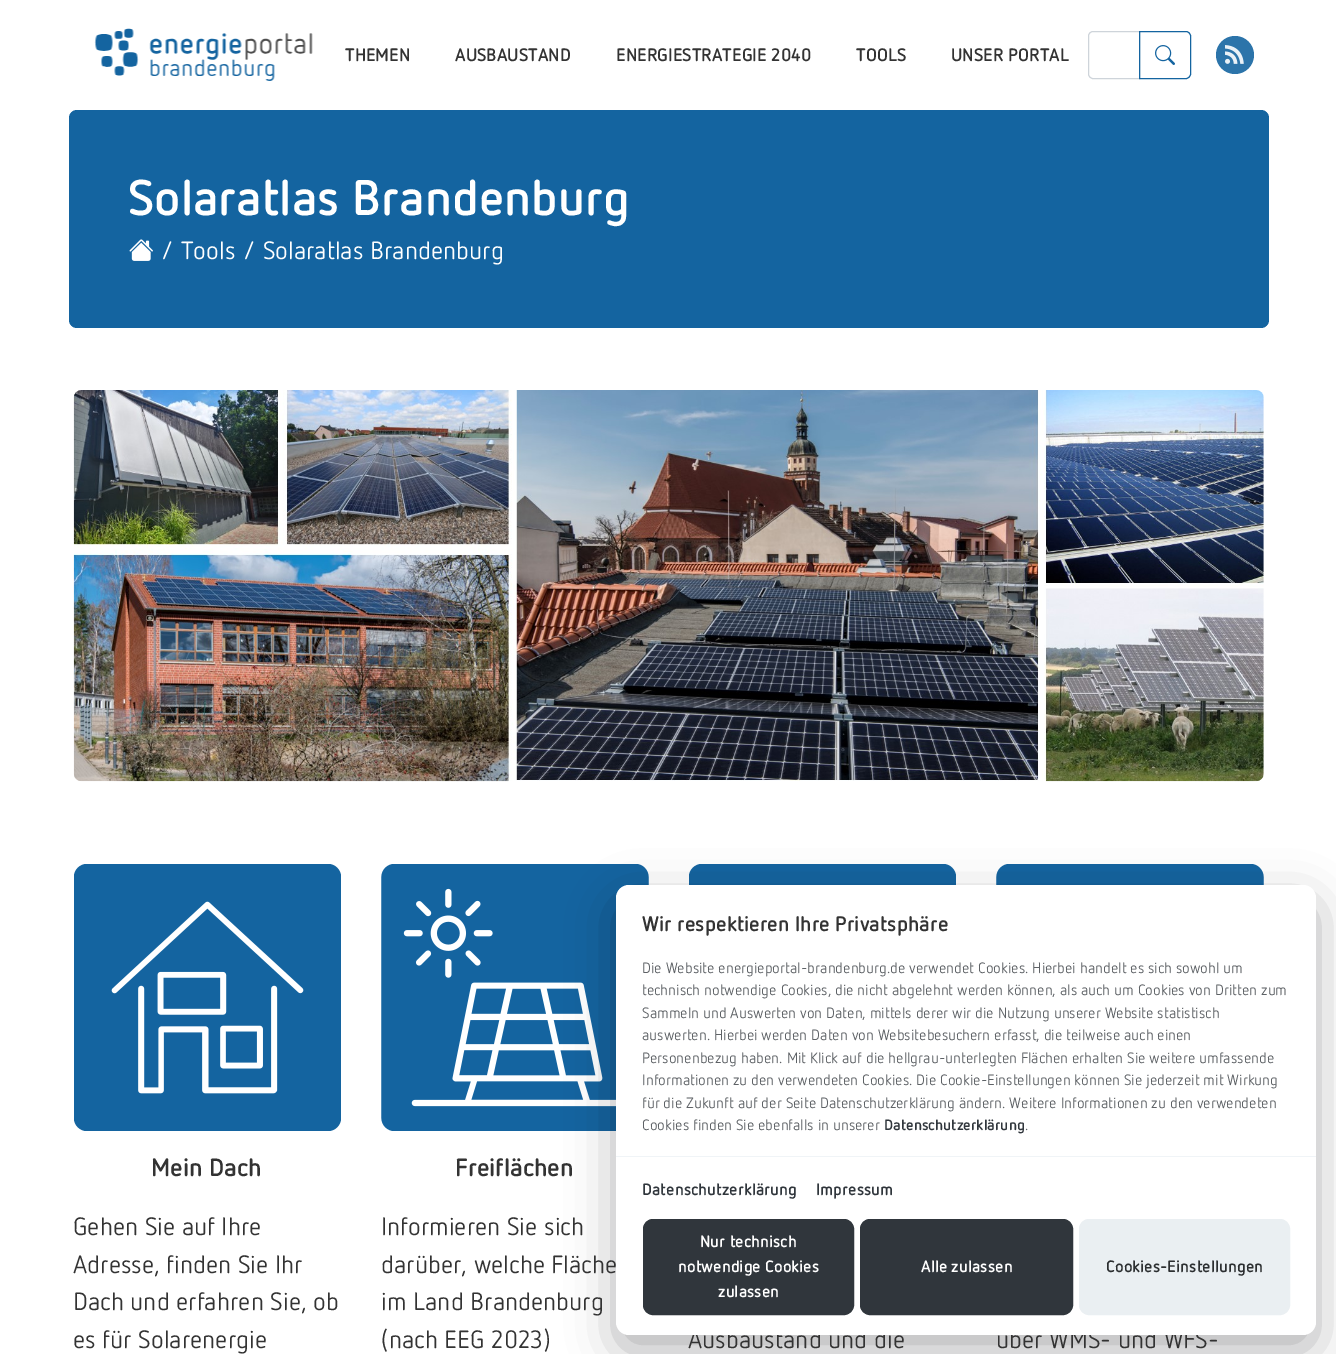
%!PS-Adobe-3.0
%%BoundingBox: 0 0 1336 1354
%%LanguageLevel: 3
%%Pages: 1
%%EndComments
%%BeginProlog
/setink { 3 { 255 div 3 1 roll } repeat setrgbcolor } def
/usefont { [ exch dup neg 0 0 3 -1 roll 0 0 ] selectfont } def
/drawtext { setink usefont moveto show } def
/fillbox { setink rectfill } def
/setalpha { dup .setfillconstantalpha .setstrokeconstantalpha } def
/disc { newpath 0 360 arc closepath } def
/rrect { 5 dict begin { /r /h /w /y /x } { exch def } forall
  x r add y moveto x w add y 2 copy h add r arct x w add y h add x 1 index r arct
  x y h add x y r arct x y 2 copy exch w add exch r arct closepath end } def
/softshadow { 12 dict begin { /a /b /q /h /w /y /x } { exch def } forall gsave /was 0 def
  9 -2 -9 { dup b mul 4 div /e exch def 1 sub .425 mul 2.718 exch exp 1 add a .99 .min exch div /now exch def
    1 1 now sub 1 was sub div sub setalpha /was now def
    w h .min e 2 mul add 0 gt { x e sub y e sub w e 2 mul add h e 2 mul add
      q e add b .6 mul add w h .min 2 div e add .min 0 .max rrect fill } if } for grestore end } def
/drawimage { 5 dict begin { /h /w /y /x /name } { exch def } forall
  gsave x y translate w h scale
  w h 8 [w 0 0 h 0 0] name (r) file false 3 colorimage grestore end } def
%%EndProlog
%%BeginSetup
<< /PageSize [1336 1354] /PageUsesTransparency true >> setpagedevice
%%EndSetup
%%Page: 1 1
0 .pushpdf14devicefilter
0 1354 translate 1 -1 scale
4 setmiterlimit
0 0 1336 1354 255 255 255 fillbox
(assets/img1.rgb) 94 28 219 53 drawimage
(THEMEN) 345 61 /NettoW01-Bold 18 51 51 51 drawtext
(AUSBAUSTAND) 455 61 /NettoW01-Bold 18 51 51 51 drawtext
(ENERGIESTRATEGIE 2040) 616 61 /NettoW01-Bold 18 51 51 51 drawtext
(TOOLS) 856 61 /NettoW01-Bold 18 51 51 51 drawtext
(UNSER PORTAL) 951 61 /NettoW01-Bold 18 51 51 51 drawtext
206 212 218 setink
1093 31.5 moveto 1139.5 31.5 lineto 1139.5 78.5 lineto 1093 78.5 lineto 1090.5 78.5 1088.5 76.5 1088.5 74 curveto 1088.5 36 lineto 1088.5 33.5 1090.5 31.5 1093 31.5 curveto closepath stroke
20 100 160 setink
1139.5 31.5 moveto 1186 31.5 lineto 1188.5 31.5 1190.5 33.5 1190.5 36 curveto 1190.5 74 lineto 1190.5 76.5 1188.5 78.5 1186 78.5 curveto 1139.5 78.5 lineto closepath stroke
(assets/img2.rgb) 1155 45 20 20 drawimage
44 116 170 setink
1235 55 19 disc fill
(assets/img3.rgb) 1225 45 19 19 drawimage
20 100 160 setink
69 110 1200 218 8 rrect fill
(Solaratlas Brandenburg) 128 215 /NettoW01-Bold 50 255 255 255 drawtext
(assets/img4.rgb) 129 239 24 22 drawimage
(/ Tools / Solaratlas Brandenburg) 160 259 /NettoW01-Regular 25 255 255 255 drawtext
(assets/img7.rgb) 381 864 268 267 drawimage
(assets/img8.rgb) 689 864 267 21 drawimage
(assets/img9.rgb) 996 864 268 21 drawimage
0 0 2 setink
616 901 700 450 13 23.5 0.3 softshadow
(Ausbaustand und die) 688 1348 /NettoW01-Regular 25 51 51 51 drawtext
(über WMS- und WFS-) 996 1348 /NettoW01-Regular 25 51 51 51 drawtext
255 255 255 setink
616 885 700 450 13 rrect fill
(Wir respektieren Ihre Privatsphäre) 642 931 /NettoW01-Bold 21 51 51 51 drawtext
(Die Website energieportal-brandenburg.de verwendet Cookies. Hierbei handelt es sich sowohl um) 642 973 /NettoW01-Regular 15 94 98 102 drawtext
(technisch notwendige Cookies, die nicht abgelehnt werden können, als auch um Cookies von Dritten zum) 642 995 /NettoW01-Regular 15 94 98 102 drawtext
(Sammeln und Auswerten von Daten, mittels derer wir die Nutzung unserer Website statistisch) 642 1018 /NettoW01-Regular 15 94 98 102 drawtext
(auswerten. Hierbei werden Daten von Websitebesuchern erfasst, die teilweise auch einen) 642 1040 /NettoW01-Regular 15 94 98 102 drawtext
(Personenbezug haben. Mit Klick auf die hellgrau-unterlegten Flächen erhalten Sie weitere umfassende) 642 1063 /NettoW01-Regular 15 94 98 102 drawtext
(Informationen zu den verwendeten Cookies. Die Cookie-Einstellungen können Sie jederzeit mit Wirkung) 642 1085 /NettoW01-Regular 15 94 98 102 drawtext
(für die Zukunft auf der Seite Datenschutzerklärung ändern. Weitere Informationen zu den verwendeten) 642 1108 /NettoW01-Regular 15 94 98 102 drawtext
(Cookies finden Sie ebenfalls in unserer) 642 1130 /NettoW01-Regular 15 94 98 102 drawtext
(Datenschutzerklärung) 884 1130 /NettoW01-Bold 15 48 54 60 drawtext
(.) 1025 1130 /NettoW01-Regular 15 94 98 102 drawtext
616 1156 700 1 240 244 247 fillbox
(Datenschutzerklärung) 642 1195 /NettoW01-Bold 16.5 48 54 60 drawtext
(Impressum) 816 1195 /NettoW01-Bold 16.5 48 54 60 drawtext
643.5 1219.5 210 95 9.5 rrect gsave fill grestore
stroke
(Nur technisch) 700 1247 /NettoW01-Bold 16.5 255 255 255 drawtext
(notwendige Cookies) 678 1272 /NettoW01-Bold 16.5 255 255 255 drawtext
(zulassen) 718 1297 /NettoW01-Bold 16.5 255 255 255 drawtext
48 54 60 setink
860.5 1219.5 212 95 9.5 rrect gsave fill grestore
stroke
(Alle zulassen) 921 1272 /NettoW01-Bold 16.5 255 255 255 drawtext
234 239 242 setink
1079.5 1219.5 210 95 9.5 rrect gsave fill grestore
stroke
(Cookies-Einstellungen) 1106 1272 /NettoW01-Bold 16.5 44 47 49 drawtext
(assets/img5.rgb) 73 390 1191 392 drawimage
(assets/img6.rgb) 74 864 267 267 drawimage
(Mein Dach) 151 1176 /NettoW01-Bold 25 51 51 51 drawtext
(Gehen Sie auf Ihre) 73 1235 /NettoW01-Regular 25 51 51 51 drawtext
(Adresse, finden Sie Ihr) 73 1273 /NettoW01-Regular 25 51 51 51 drawtext
(Dach und erfahren Sie, ob) 73 1310 /NettoW01-Regular 25 51 51 51 drawtext
(es für Solarenergie) 73 1348 /NettoW01-Regular 25 51 51 51 drawtext
(Freiflächen) 455 1176 /NettoW01-Bold 25 51 51 51 drawtext
(Informieren Sie sich) 381 1235 /NettoW01-Regular 25 51 51 51 drawtext
(darüber, welche Fläche) 381 1273 /NettoW01-Regular 25 51 51 51 drawtext
(im Land Brandenburg) 381 1310 /NettoW01-Regular 25 51 51 51 drawtext
(\(nach EEG 2023\)) 381 1348 /NettoW01-Regular 25 51 51 51 drawtext
.poppdf14devicefilter showpage
%%EOF
